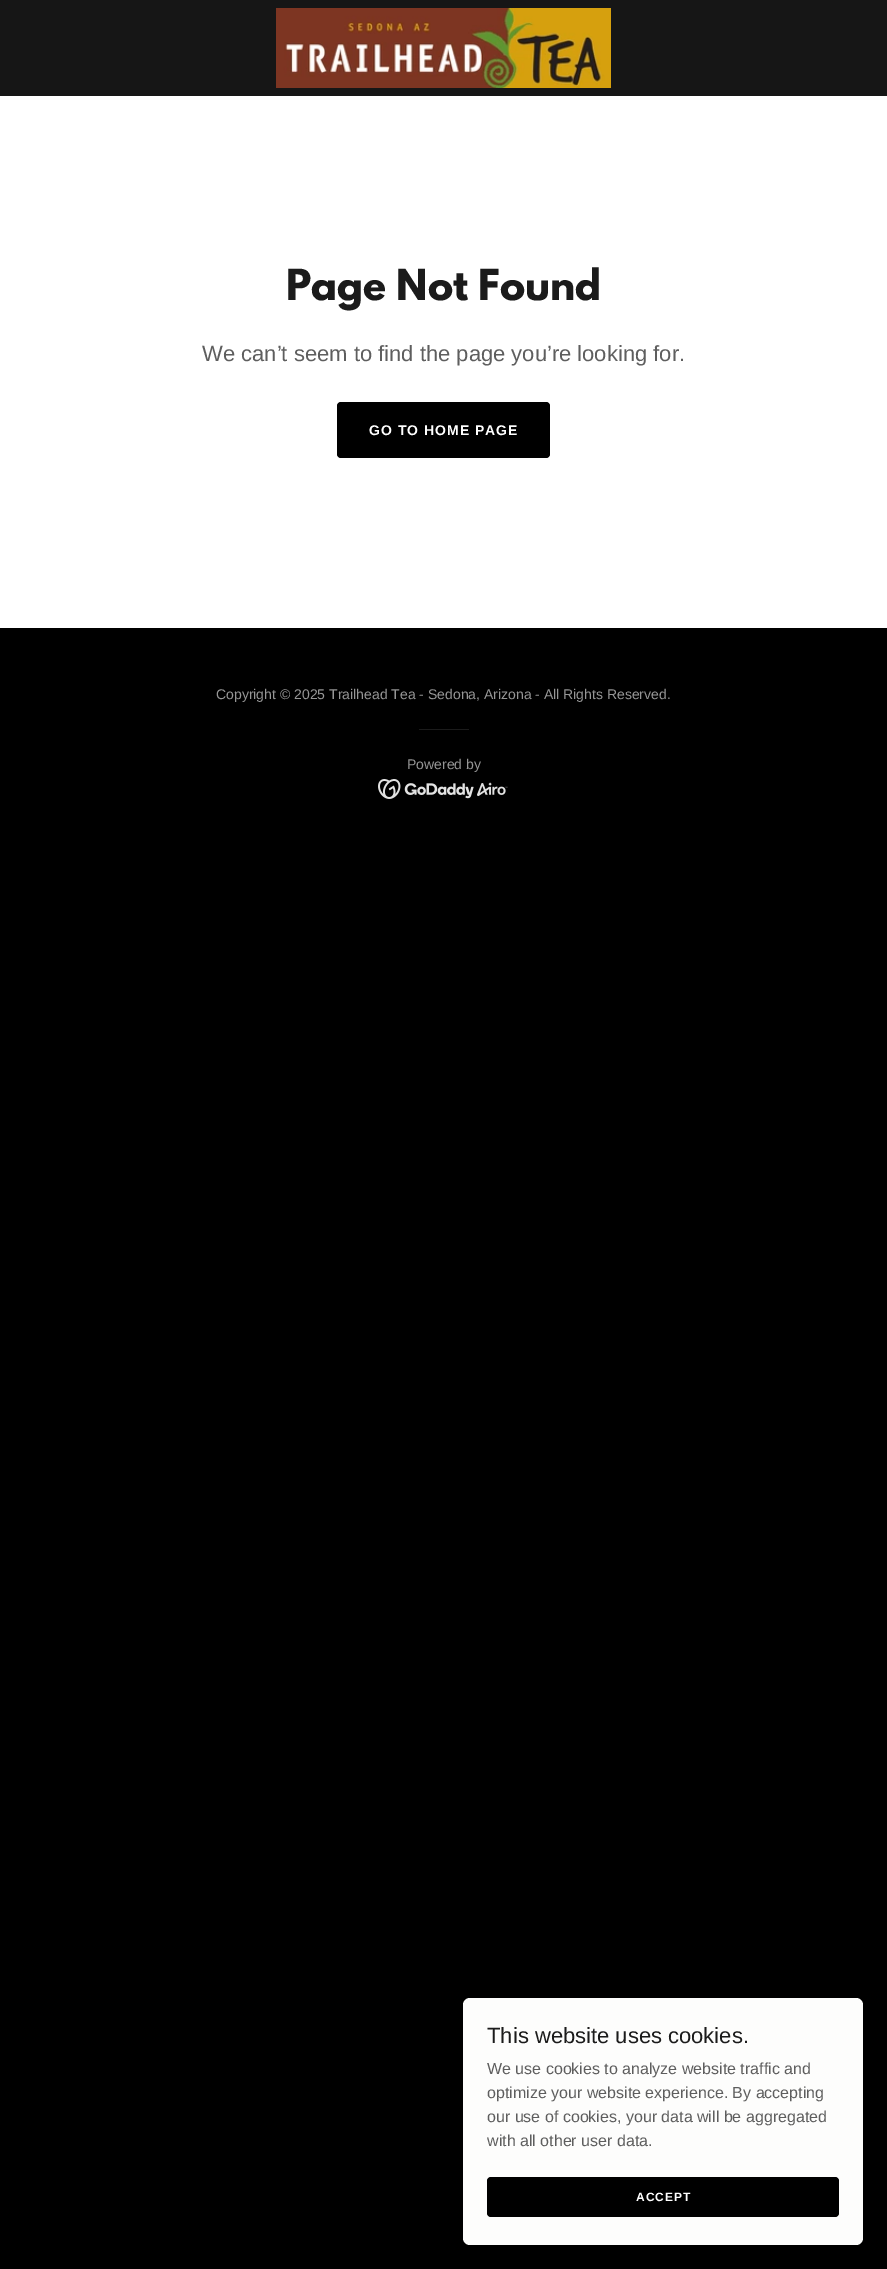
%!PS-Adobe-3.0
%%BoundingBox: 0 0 887 2269
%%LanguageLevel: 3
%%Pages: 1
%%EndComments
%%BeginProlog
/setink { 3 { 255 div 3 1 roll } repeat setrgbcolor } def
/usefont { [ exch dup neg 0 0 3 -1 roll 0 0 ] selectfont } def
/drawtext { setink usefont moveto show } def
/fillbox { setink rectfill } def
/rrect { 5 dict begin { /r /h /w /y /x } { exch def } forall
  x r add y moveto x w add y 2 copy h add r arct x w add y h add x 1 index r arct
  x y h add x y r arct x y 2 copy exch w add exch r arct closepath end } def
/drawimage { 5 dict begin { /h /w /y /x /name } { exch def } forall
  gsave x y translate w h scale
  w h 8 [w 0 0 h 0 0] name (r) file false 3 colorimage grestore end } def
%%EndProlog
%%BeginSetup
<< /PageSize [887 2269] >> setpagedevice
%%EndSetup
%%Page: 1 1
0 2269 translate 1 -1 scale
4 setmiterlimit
0 0 887 2269 0 0 0 fillbox
0 0 887 96 22 22 22 fillbox
(assets/img1.rgb) 276 8 335 80 drawimage
0 96 887 532 255 255 255 fillbox
(Page Not Found) 286 300 /LeagueSpartan-Bold 38 27 27 27 drawtext
(We can’t seem to find the page you’re looking for.) 202 361 /LiberationSans-Regular 22 94 94 94 drawtext
0 0 0 setink
337 402 213 56 4 rrect fill
/LiberationSans-Bold 14 usefont
255 255 255 setink
369 435 moveto 1 0 (GO TO HOME PAGE) ashow
(Copyright © 2025 Trailhead Tea - Sedona, Arizona - All Rights Reserved.) 216 699 /LiberationSans-Regular 14 150 150 150 drawtext
419 729 50 1 27 27 27 fillbox
(Powered by) 407 769 /LiberationSans-Regular 14 150 150 150 drawtext
(assets/img2.rgb) 378 779 130 20 drawimage
253 253 252 setink
463 1998 400 247 7 rrect fill
(This website uses cookies.) 487 2043 /LiberationSans-Regular 22 27 27 27 drawtext
(We use cookies to analyze website traffic and) 487 2074 /LiberationSans-Regular 16 94 94 94 drawtext
(optimize your website experience. By accepting) 487 2098 /LiberationSans-Regular 16 94 94 94 drawtext
(our use of cookies, your data will be aggregated) 487 2122 /LiberationSans-Regular 16 94 94 94 drawtext
(with all other user data.) 487 2146 /LiberationSans-Regular 16 94 94 94 drawtext
0 0 0 setink
487 2177 352 40 4 rrect fill
/LiberationSans-Bold 12 usefont
255 255 255 setink
636 2201 moveto 1 0 (ACCEPT) ashow
showpage
%%EOF
